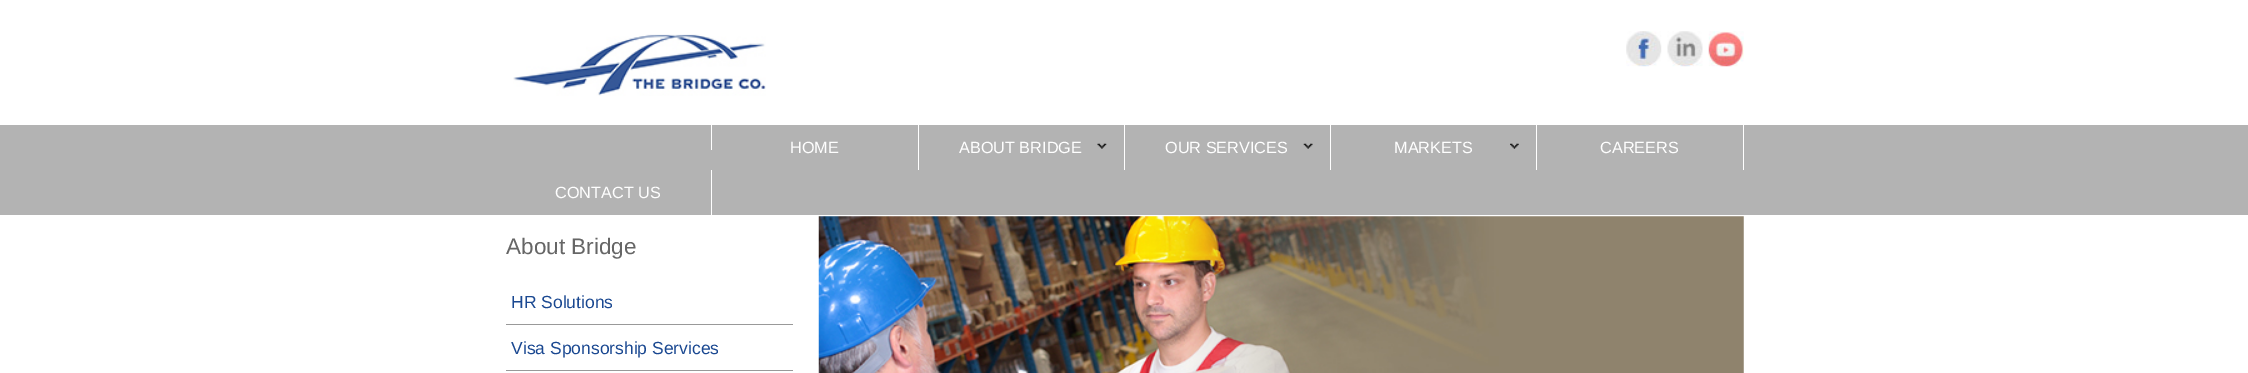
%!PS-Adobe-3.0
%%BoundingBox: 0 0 2248 373
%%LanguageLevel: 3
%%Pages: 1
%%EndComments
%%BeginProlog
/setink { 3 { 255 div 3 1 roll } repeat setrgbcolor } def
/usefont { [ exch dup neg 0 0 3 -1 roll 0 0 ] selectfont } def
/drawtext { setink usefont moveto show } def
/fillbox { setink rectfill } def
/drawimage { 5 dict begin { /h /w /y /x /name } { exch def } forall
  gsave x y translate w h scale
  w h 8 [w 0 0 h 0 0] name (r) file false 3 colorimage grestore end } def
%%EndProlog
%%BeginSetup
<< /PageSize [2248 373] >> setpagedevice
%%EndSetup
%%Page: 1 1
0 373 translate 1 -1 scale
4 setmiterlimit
0 0 2248 373 255 255 255 fillbox
(assets/img1.rgb) 513 34 253 62 drawimage
(assets/img2.rgb) 1626 31 36 36 drawimage
(assets/img3.rgb) 1667 31 36 36 drawimage
(assets/img4.rgb) 1708 31 36 36 drawimage
0 125 2248 90 179 179 179 fillbox
711 125 1 25 255 255 255 fillbox
918 125 1 45 255 255 255 fillbox
(HOME) 790 153 /LiberationSans-Regular 16.25 255 255 255 drawtext
1124 125 1 45 255 255 255 fillbox
(ABOUT BRIDGE) 959 153 /LiberationSans-Regular 16.25 255 255 255 drawtext
(assets/img5.rgb) 1097 143 10 6 drawimage
1330 125 1 45 255 255 255 fillbox
(OUR SERVICES) 1165 153 /LiberationSans-Regular 16.25 255 255 255 drawtext
(assets/img6.rgb) 1303 143 10 6 drawimage
1536 125 1 45 255 255 255 fillbox
(MARKETS) 1394 153 /LiberationSans-Regular 16.25 255 255 255 drawtext
(assets/img7.rgb) 1510 143 9 6 drawimage
1743 125 1 45 255 255 255 fillbox
(CAREERS) 1600 153 /LiberationSans-Regular 16.25 255 255 255 drawtext
711 170 1 45 255 255 255 fillbox
(CONTACT US) 555 198 /LiberationSans-Regular 16.25 255 255 255 drawtext
(About Bridge) 506 254 /LiberationSans-Regular 22.5 102 102 102 drawtext
506 324 287 1 153 153 153 fillbox
(HR Solutions) 511 308 /LiberationSans-Regular 17.5 26 72 145 drawtext
506 370 287 1 153 153 153 fillbox
(Visa Sponsorship Services) 511 354 /LiberationSans-Regular 17.5 26 72 145 drawtext
(assets/img8.rgb) 818 216 926 157 drawimage
showpage
%%EOF
